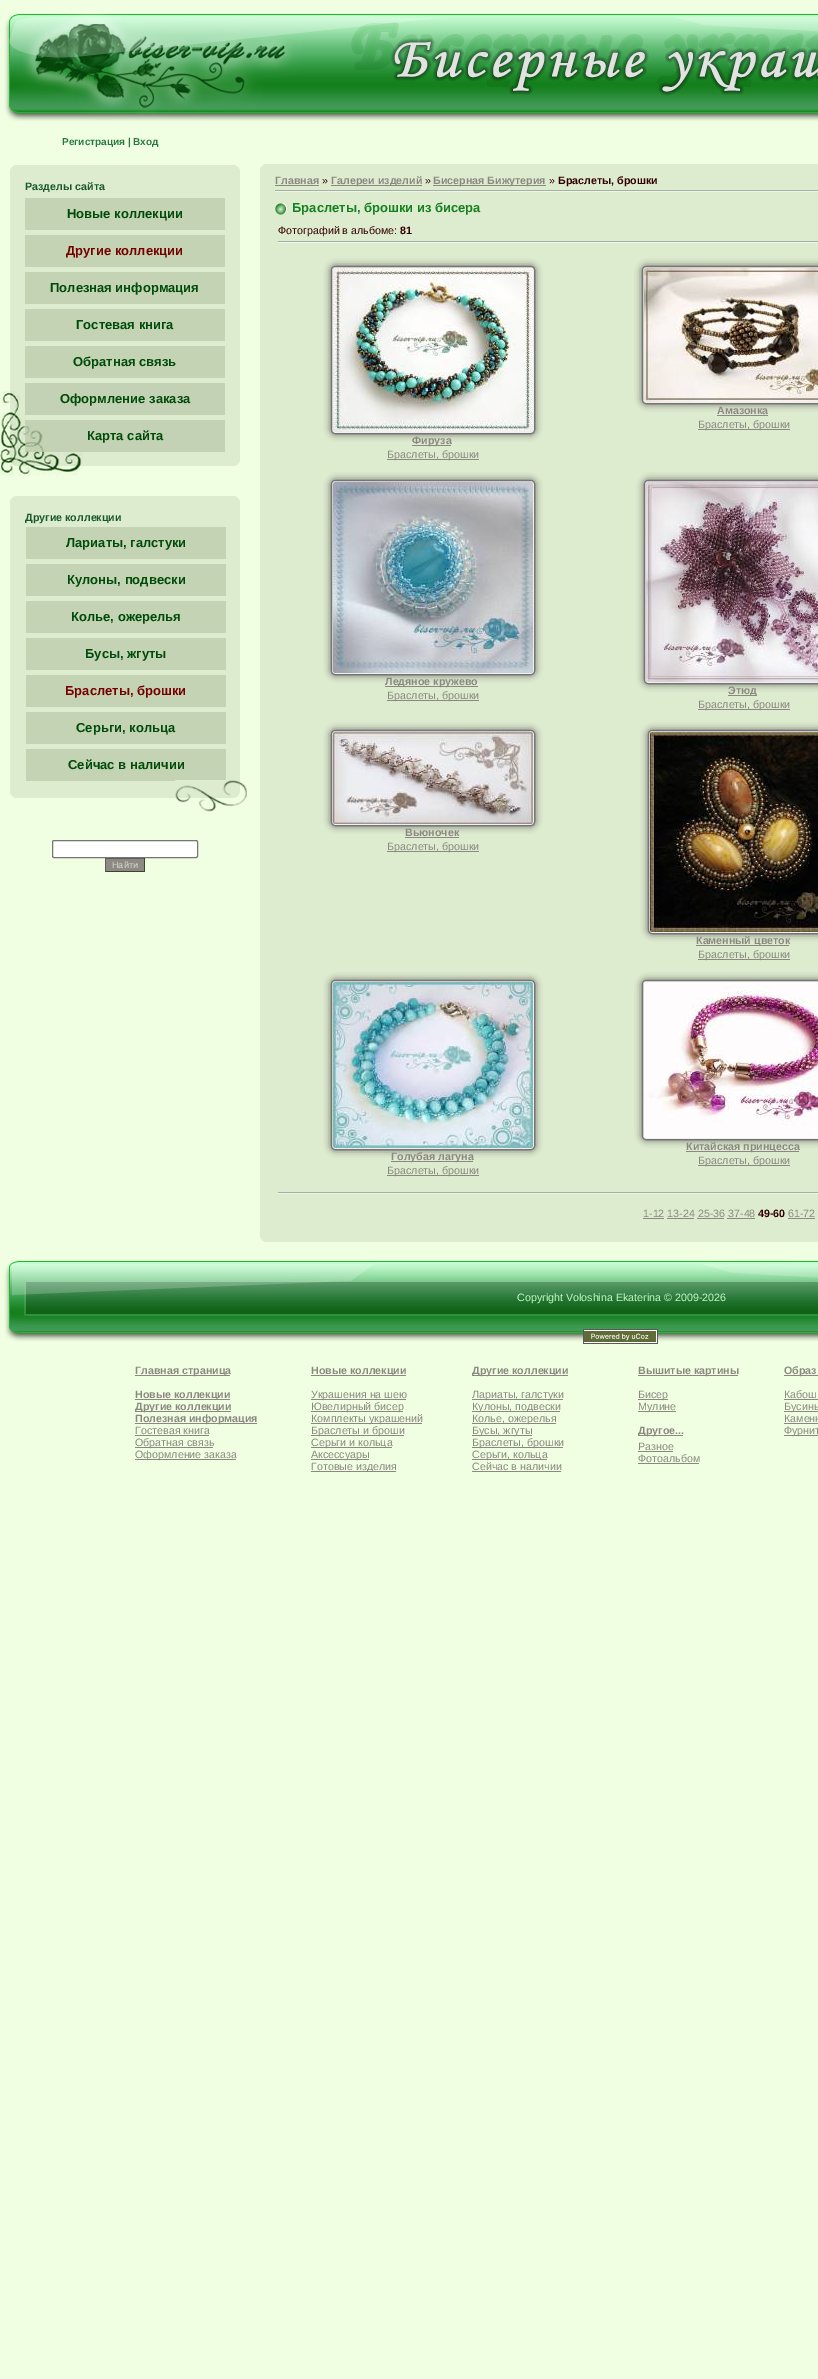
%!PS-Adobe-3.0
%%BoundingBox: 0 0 818 2379
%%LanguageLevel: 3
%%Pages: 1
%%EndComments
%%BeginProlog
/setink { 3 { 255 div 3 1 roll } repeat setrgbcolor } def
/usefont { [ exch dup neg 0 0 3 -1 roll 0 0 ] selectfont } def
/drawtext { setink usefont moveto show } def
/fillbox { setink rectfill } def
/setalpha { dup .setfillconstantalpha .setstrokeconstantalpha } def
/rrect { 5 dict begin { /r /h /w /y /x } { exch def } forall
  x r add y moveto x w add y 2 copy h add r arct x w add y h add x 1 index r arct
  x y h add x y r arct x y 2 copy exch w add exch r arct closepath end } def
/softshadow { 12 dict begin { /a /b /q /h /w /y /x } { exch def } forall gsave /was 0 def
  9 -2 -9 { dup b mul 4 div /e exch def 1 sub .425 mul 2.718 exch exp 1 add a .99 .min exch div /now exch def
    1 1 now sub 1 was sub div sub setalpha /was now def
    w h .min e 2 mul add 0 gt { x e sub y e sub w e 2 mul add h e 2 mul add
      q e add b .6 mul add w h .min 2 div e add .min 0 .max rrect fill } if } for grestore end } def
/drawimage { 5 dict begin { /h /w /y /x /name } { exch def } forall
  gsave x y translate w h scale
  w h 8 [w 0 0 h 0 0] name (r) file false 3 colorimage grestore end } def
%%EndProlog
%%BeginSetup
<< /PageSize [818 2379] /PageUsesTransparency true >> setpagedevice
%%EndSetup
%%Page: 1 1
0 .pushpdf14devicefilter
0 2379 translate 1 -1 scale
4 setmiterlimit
0 0 818 2379 240 255 225 fillbox
(assets/img1.rgb) 4 8 814 113 drawimage
(Регистрация | Вход) 62 145 /LiberationSans-Bold 10 39 120 62 drawtext
221 235 207 setink
10 165 230 301 7 rrect fill
(Разделы сайта) 25 190 /LiberationSans-Bold 10.7 25 88 44 drawtext
(assets/img2.rgb) 0 391 83 85 drawimage
25 198 200 32 195 211 180 fillbox
(Новые коллекции) 67 218 /LiberationSans-Bold 13 0 75 9 drawtext
25 235 200 32 195 211 180 fillbox
(Другие коллекции) 66 255 /LiberationSans-Bold 13 117 0 0 drawtext
25 272 200 32 195 211 180 fillbox
(Полезная информация) 50 292 /LiberationSans-Bold 13 0 75 9 drawtext
25 309 200 32 195 211 180 fillbox
(Гостевая книга) 76 329 /LiberationSans-Bold 13 0 75 9 drawtext
25 346 200 32 195 211 180 fillbox
(Обратная связь) 73 366 /LiberationSans-Bold 13 0 75 9 drawtext
25 383 200 32 195 210 180 fillbox
(Оформление заказа) 60 403 /LiberationSans-Bold 13 0 75 9 drawtext
0.7 setalpha
25 420 200 32 184 200 168 fillbox
1 setalpha
(Карта сайта) 87 440 /LiberationSans-Bold 13 0 75 9 drawtext
221 235 207 setink
10 496 230 302 7 rrect fill
26 749 200 32 195 211 180 fillbox
(Другие коллекции) 25 521 /LiberationSans-Bold 10.7 25 88 44 drawtext
26 527 200 32 195 211 180 fillbox
(Лариаты, галстуки) 66 547 /LiberationSans-Bold 13 0 75 9 drawtext
26 564 200 32 195 211 180 fillbox
(Кулоны, подвески) 67 584 /LiberationSans-Bold 13 0 75 9 drawtext
26 601 200 32 195 211 180 fillbox
(Колье, ожерелья) 71 621 /LiberationSans-Bold 13 0 75 9 drawtext
26 638 200 32 195 211 180 fillbox
(Бусы, жгуты) 85 658 /LiberationSans-Bold 13 0 75 9 drawtext
26 675 200 32 195 211 180 fillbox
(Браслеты, брошки) 65 695 /LiberationSans-Bold 13 117 0 0 drawtext
26 712 200 32 195 211 180 fillbox
(Серьги, кольца) 76 732 /LiberationSans-Bold 13 0 75 9 drawtext
(Сейчас в наличии) 68 769 /LiberationSans-Bold 13 0 75 9 drawtext
(assets/img3.rgb) 175 780 72 32 drawimage
255 255 255 setink
52.5 840.5 145 17 1.5 rrect gsave fill grestore
118 118 118 setink
stroke
106 859 38 12 141 138 131 fillbox
105 858 40 1 97 94 88 fillbox
144 858 1 14 65 63 59 fillbox
105 871 40 1 65 63 59 fillbox
105 858 1 14 97 94 88 fillbox
(Найти) 112 868 /LiberationSans-Regular 9 218 215 204 drawtext
221 235 207 setink
260 164 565 1078 7 rrect fill
(Главная) 275 184 /LiberationSans-Bold 10.7 139 136 129 drawtext
275 185 44 1 139 136 129 fillbox
(») 322 184 /LiberationSans-Regular 10.7 51 0 0 drawtext
331 185 91 1 139 136 129 fillbox
(Галереи изделий) 331 184 /LiberationSans-Bold 10.7 139 136 129 drawtext
(») 425 184 /LiberationSans-Regular 10.7 51 0 0 drawtext
433 185 113 1 139 136 129 fillbox
(Бисерная Бижутерия) 433 184 /LiberationSans-Bold 10.7 139 136 129 drawtext
(») 549 184 /LiberationSans-Regular 10.7 51 0 0 drawtext
(Браслеты, брошки) 558 184 /LiberationSans-Bold 10.7 51 0 0 drawtext
275 190 543 1 170 170 170 fillbox
275 191 543 1 231 250 226 fillbox
(assets/img4.rgb) 275 203 12 12 drawimage
(Браслеты, брошки из бисера) 292 212 /LiberationSans-Bold 13 20 128 30 drawtext
(Фотографий в альбоме:) 278 234 /LiberationSans-Regular 10.7 51 0 0 drawtext
(81) 400 234 /LiberationSans-Bold 10.7 51 0 0 drawtext
278 241 540 1 170 170 170 fillbox
278 242 540 1 231 250 226 fillbox
85 85 85 setink
642 266 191 138 4 3.5 1 softshadow
239 239 239 setink
642.5 266.5 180 137 3.5 rrect gsave fill grestore
117 117 117 setink
stroke
(assets/img5.rgb) 644 268 174 134 drawimage
(Амазонка) 717 414 /LiberationSans-Bold 10.7 139 136 129 drawtext
717 415 51 1 139 136 129 fillbox
698 429 92 1 139 136 129 fillbox
(Браслеты, брошки) 698 428 /LiberationSans-Regular 10.7 139 136 129 drawtext
85 85 85 setink
331 266 204 168 4 3.5 1 softshadow
239 239 239 setink
331.5 266.5 203 167 3.5 rrect gsave fill grestore
117 117 117 setink
stroke
(assets/img6.rgb) 333 268 200 164 drawimage
412 445 39 1 139 136 129 fillbox
(Фируза) 412 444 /LiberationSans-Bold 10.7 139 136 129 drawtext
387 459 92 1 139 136 129 fillbox
(Браслеты, брошки) 387 458 /LiberationSans-Regular 10.7 139 136 129 drawtext
85 85 85 setink
331 480 204 195 4 3.5 1 softshadow
239 239 239 setink
331.5 480.5 203 194 3.5 rrect gsave fill grestore
117 117 117 setink
stroke
(assets/img7.rgb) 333 482 200 191 drawimage
385 686 93 1 139 136 129 fillbox
(Ледяное кружево) 385 685 /LiberationSans-Bold 10.7 139 136 129 drawtext
387 700 92 1 139 136 129 fillbox
(Браслеты, брошки) 387 699 /LiberationSans-Regular 10.7 139 136 129 drawtext
85 85 85 setink
644 480 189 204 4 3.5 1 softshadow
239 239 239 setink
644.5 480.5 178 203 3.5 rrect gsave fill grestore
117 117 117 setink
stroke
(assets/img8.rgb) 646 482 172 200 drawimage
728 695 29 1 139 136 129 fillbox
(Этюд) 728 694 /LiberationSans-Bold 10.7 139 136 129 drawtext
698 709 92 1 139 136 129 fillbox
(Браслеты, брошки) 698 708 /LiberationSans-Regular 10.7 139 136 129 drawtext
85 85 85 setink
331 730 204 96 4 3.5 1 softshadow
239 239 239 setink
331.5 730.5 203 95 3.5 rrect gsave fill grestore
117 117 117 setink
stroke
(assets/img9.rgb) 333 732 200 92 drawimage
(Вьюночек) 405 836 /LiberationSans-Bold 10.7 139 136 129 drawtext
405 837 54 1 139 136 129 fillbox
387 851 92 1 139 136 129 fillbox
(Браслеты, брошки) 387 850 /LiberationSans-Regular 10.7 139 136 129 drawtext
85 85 85 setink
648 730 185 204 4 3.5 1 softshadow
239 239 239 setink
648.5 730.5 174 203 3.5 rrect gsave fill grestore
117 117 117 setink
stroke
(assets/img10.rgb) 650 732 168 200 drawimage
696 945 93 1 139 136 129 fillbox
(Каменный цветок) 696 944 /LiberationSans-Bold 10.7 139 136 129 drawtext
698 959 92 1 139 136 129 fillbox
(Браслеты, брошки) 698 958 /LiberationSans-Regular 10.7 139 136 129 drawtext
85 85 85 setink
331 980 204 170 4 3.5 1 softshadow
239 239 239 setink
331.5 980.5 203 169 3.5 rrect gsave fill grestore
117 117 117 setink
stroke
(assets/img11.rgb) 333 982 200 166 drawimage
391 1161 82 1 139 136 129 fillbox
(Голубая лагуна) 391 1160 /LiberationSans-Bold 10.7 139 136 129 drawtext
387 1175 92 1 139 136 129 fillbox
(Браслеты, брошки) 387 1174 /LiberationSans-Regular 10.7 139 136 129 drawtext
85 85 85 setink
642 980 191 160 4 3.5 1 softshadow
239 239 239 setink
642.5 980.5 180 159 3.5 rrect gsave fill grestore
117 117 117 setink
stroke
(assets/img12.rgb) 644 982 174 156 drawimage
686 1151 113 1 139 136 129 fillbox
(Китайская принцесса) 686 1150 /LiberationSans-Bold 10.7 139 136 129 drawtext
698 1165 92 1 139 136 129 fillbox
(Браслеты, брошки) 698 1164 /LiberationSans-Regular 10.7 139 136 129 drawtext
278 1192 540 1 170 170 170 fillbox
278 1193 540 1 231 250 226 fillbox
(1-12 13-24 25-36 37-48) 643 1217 /LiberationSans-Regular 10.7 139 136 129 drawtext
643 1218 21 1 139 136 129 fillbox
667 1218 27 1 139 136 129 fillbox
697 1218 27 1 139 136 129 fillbox
727 1218 28 1 139 136 129 fillbox
(49-60) 758 1217 /LiberationSans-Bold 10.7 51 0 0 drawtext
(61-72) 788 1217 /LiberationSans-Regular 10.7 139 136 129 drawtext
788 1218 27 1 139 136 129 fillbox
(assets/img13.rgb) 0 1252 818 97 drawimage
(Copyright Voloshina Ekaterina © 2009-2026) 517 1301 /LiberationSans-Regular 10.7 194 250 197 drawtext
(assets/img14.rgb) 583 1329 75 15 drawimage
135 1375 95 1 139 136 129 fillbox
(Главная страница) 135 1374 /LiberationSans-Bold 10.7 139 136 129 drawtext
135 1399 95 1 139 136 129 fillbox
(Новые коллекции) 135 1398 /LiberationSans-Bold 10.7 139 136 129 drawtext
135 1411 96 1 139 136 129 fillbox
(Другие коллекции) 135 1410 /LiberationSans-Bold 10.7 139 136 129 drawtext
135 1423 122 1 139 136 129 fillbox
(Полезная информация) 135 1422 /LiberationSans-Bold 10.7 139 136 129 drawtext
(Гостевая книга) 135 1434 /LiberationSans-Regular 10.7 139 136 129 drawtext
135 1435 74 1 139 136 129 fillbox
135 1447 78 1 139 136 129 fillbox
(Обратная связь) 135 1446 /LiberationSans-Regular 10.7 139 136 129 drawtext
135 1459 101 1 139 136 129 fillbox
(Оформление заказа) 135 1458 /LiberationSans-Regular 10.7 139 136 129 drawtext
311 1375 95 1 139 136 129 fillbox
(Новые коллекции) 311 1374 /LiberationSans-Bold 10.7 139 136 129 drawtext
311 1399 95 1 139 136 129 fillbox
(Украшения на шею) 311 1398 /LiberationSans-Regular 10.7 139 136 129 drawtext
311 1411 92 1 139 136 129 fillbox
(Ювелирный бисер) 311 1410 /LiberationSans-Regular 10.7 139 136 129 drawtext
311 1423 111 1 139 136 129 fillbox
(Комплекты украшений) 311 1422 /LiberationSans-Regular 10.7 139 136 129 drawtext
311 1435 93 1 139 136 129 fillbox
(Браслеты и броши) 311 1434 /LiberationSans-Regular 10.7 139 136 129 drawtext
311 1447 81 1 139 136 129 fillbox
(Серьги и кольца) 311 1446 /LiberationSans-Regular 10.7 139 136 129 drawtext
311 1459 58 1 139 136 129 fillbox
(Аксессуары) 311 1458 /LiberationSans-Regular 10.7 139 136 129 drawtext
311 1471 85 1 139 136 129 fillbox
(Готовые изделия) 311 1470 /LiberationSans-Regular 10.7 139 136 129 drawtext
472 1375 96 1 139 136 129 fillbox
(Другие коллекции) 472 1374 /LiberationSans-Bold 10.7 139 136 129 drawtext
472 1399 91 1 139 136 129 fillbox
(Лариаты, галстуки) 472 1398 /LiberationSans-Regular 10.7 139 136 129 drawtext
472 1411 88 1 139 136 129 fillbox
(Кулоны, подвески) 472 1410 /LiberationSans-Regular 10.7 139 136 129 drawtext
472 1423 84 1 139 136 129 fillbox
(Колье, ожерелья) 472 1422 /LiberationSans-Regular 10.7 139 136 129 drawtext
472 1435 60 1 139 136 129 fillbox
(Бусы, жгуты) 472 1434 /LiberationSans-Regular 10.7 139 136 129 drawtext
472 1447 91 1 139 136 129 fillbox
(Браслеты, брошки) 472 1446 /LiberationSans-Regular 10.7 139 136 129 drawtext
472 1459 75 1 139 136 129 fillbox
(Серьги, кольца) 472 1458 /LiberationSans-Regular 10.7 139 136 129 drawtext
(Сейчас в наличии) 472 1470 /LiberationSans-Regular 10.7 139 136 129 drawtext
472 1471 89 1 139 136 129 fillbox
638 1375 100 1 139 136 129 fillbox
(Вышитые картины) 638 1374 /LiberationSans-Bold 10.7 139 136 129 drawtext
638 1399 30 1 139 136 129 fillbox
(Бисер) 638 1398 /LiberationSans-Regular 10.7 139 136 129 drawtext
638 1411 38 1 139 136 129 fillbox
(Мулине) 638 1410 /LiberationSans-Regular 10.7 139 136 129 drawtext
638 1435 45 1 139 136 129 fillbox
(Другое...) 638 1434 /LiberationSans-Bold 10.7 139 136 129 drawtext
(Разное) 638 1450 /LiberationSans-Regular 10.7 139 136 129 drawtext
638 1451 35 1 139 136 129 fillbox
(Фотоальбом) 638 1462 /LiberationSans-Regular 10.7 139 136 129 drawtext
638 1463 61 1 139 136 129 fillbox
784 1375 34 1 139 136 129 fillbox
(Образ) 784 1374 /LiberationSans-Bold 10.7 139 136 129 drawtext
(Кабош) 784 1398 /LiberationSans-Regular 10.7 139 136 129 drawtext
784 1399 34 1 139 136 129 fillbox
784 1411 34 1 139 136 129 fillbox
(Бусины) 784 1410 /LiberationSans-Regular 10.7 139 136 129 drawtext
(Каменн) 784 1422 /LiberationSans-Regular 10.7 139 136 129 drawtext
784 1423 34 1 139 136 129 fillbox
784 1435 34 1 139 136 129 fillbox
(Фурнит) 784 1434 /LiberationSans-Regular 10.7 139 136 129 drawtext
.poppdf14devicefilter showpage
%%EOF
